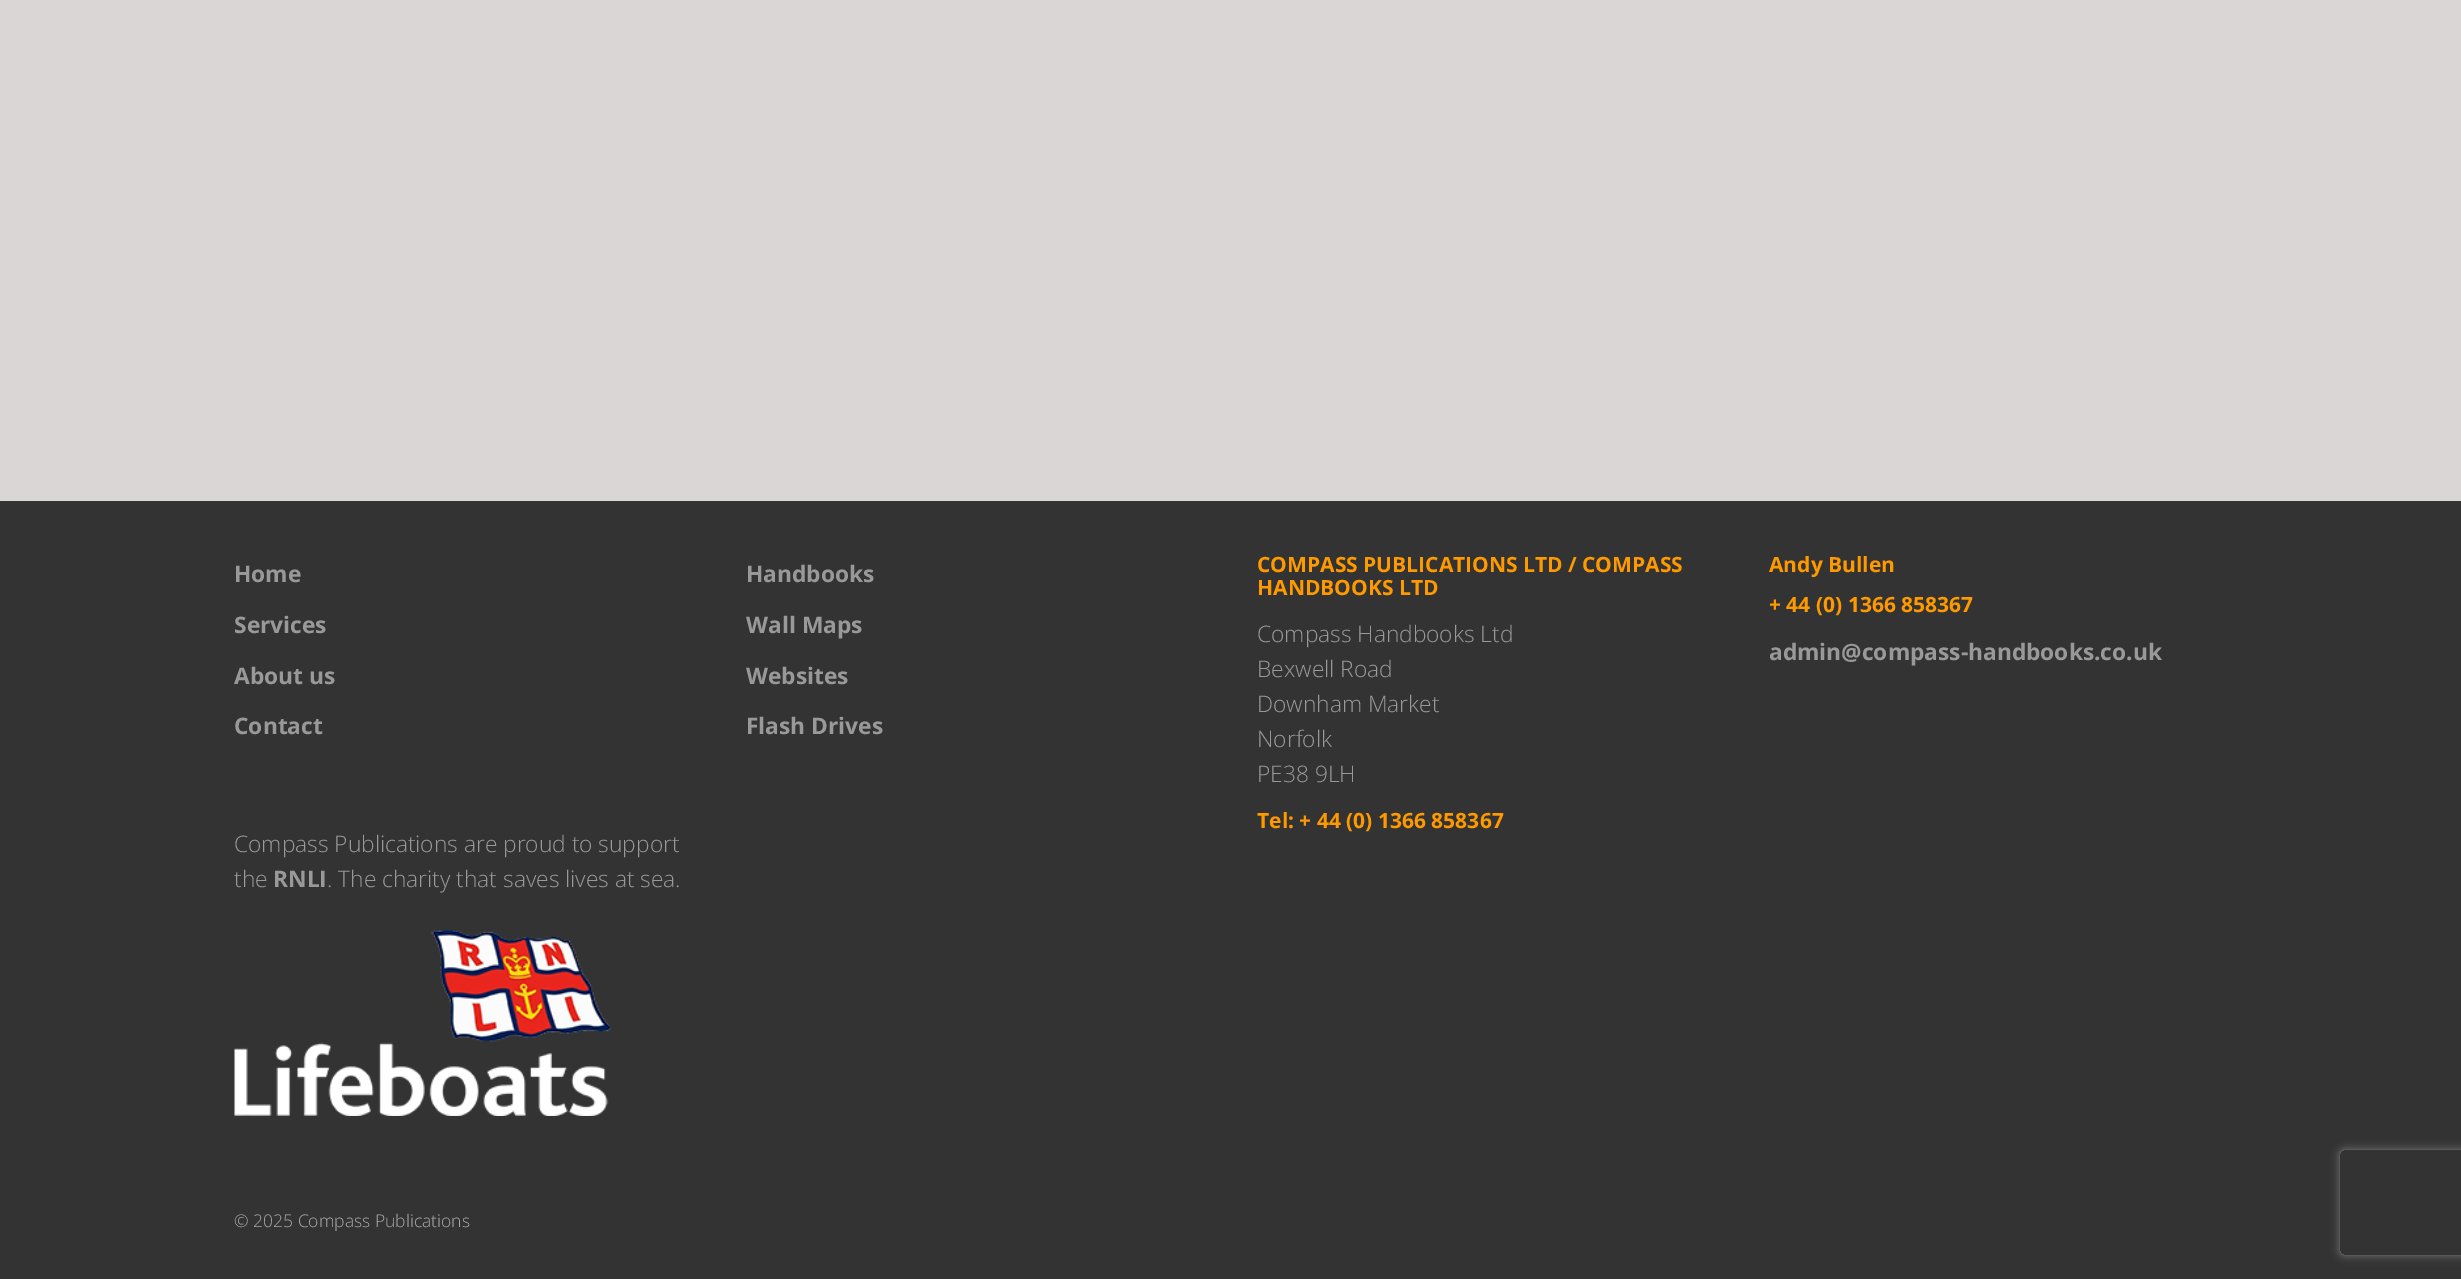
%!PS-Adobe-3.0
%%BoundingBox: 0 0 2461 1279
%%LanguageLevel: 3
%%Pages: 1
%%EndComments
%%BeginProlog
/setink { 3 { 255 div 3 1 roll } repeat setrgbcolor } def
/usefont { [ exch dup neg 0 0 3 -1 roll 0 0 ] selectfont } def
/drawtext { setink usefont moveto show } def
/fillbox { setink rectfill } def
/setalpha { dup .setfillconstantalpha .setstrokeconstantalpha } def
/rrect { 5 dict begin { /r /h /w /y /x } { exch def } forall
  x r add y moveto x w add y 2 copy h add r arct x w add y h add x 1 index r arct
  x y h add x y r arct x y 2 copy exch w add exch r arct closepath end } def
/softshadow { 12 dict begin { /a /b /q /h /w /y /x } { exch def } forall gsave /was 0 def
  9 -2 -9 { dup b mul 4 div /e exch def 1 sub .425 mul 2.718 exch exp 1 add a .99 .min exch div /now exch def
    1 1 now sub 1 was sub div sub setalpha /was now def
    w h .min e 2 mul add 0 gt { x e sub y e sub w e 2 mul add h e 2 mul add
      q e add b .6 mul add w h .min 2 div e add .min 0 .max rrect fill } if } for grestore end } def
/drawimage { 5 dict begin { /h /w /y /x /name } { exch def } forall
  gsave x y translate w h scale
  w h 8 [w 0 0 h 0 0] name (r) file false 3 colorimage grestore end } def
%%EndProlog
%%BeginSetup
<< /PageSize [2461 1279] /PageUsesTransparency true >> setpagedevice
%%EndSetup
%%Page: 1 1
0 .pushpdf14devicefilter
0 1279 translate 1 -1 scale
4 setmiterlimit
0 0 2461 1279 218 214 214 fillbox
0 501 2461 778 51 51 51 fillbox
(Home) 234 582 /OpenSans-Bold 22.75 153 153 153 drawtext
(Services) 234 633 /OpenSans-Bold 22.75 153 153 153 drawtext
(About us) 234 684 /OpenSans-Bold 22.75 153 153 153 drawtext
(Contact) 234 734 /OpenSans-Bold 22.75 153 153 153 drawtext
(Compass Publications are proud to support) 234 852 /OpenSans-Light 22.75 153 153 153 drawtext
(the) 234 887 /OpenSans-Light 22.75 153 153 153 drawtext
(RNLI) 273 887 /OpenSans-Bold 22.75 153 153 153 drawtext
(. The charity that saves lives at sea.) 327 887 /OpenSans-Light 22.75 153 153 153 drawtext
(assets/img1.rgb) 234 930 377 186 drawimage
(Handbooks) 746 582 /OpenSans-Bold 22.75 153 153 153 drawtext
(Wall Maps) 746 633 /OpenSans-Bold 22.75 153 153 153 drawtext
(Websites) 746 684 /OpenSans-Bold 22.75 153 153 153 drawtext
(Flash Drives) 746 734 /OpenSans-Bold 22.75 153 153 153 drawtext
(COMPASS PUBLICATIONS LTD / COMPASS) 1257 572 /OpenSans-Bold 21 255 153 0 drawtext
(HANDBOOKS LTD) 1257 595 /OpenSans-Bold 21 255 153 0 drawtext
(Compass Handbooks Ltd) 1257 642 /OpenSans-Light 22.75 153 153 153 drawtext
(Bexwell Road) 1257 677 /OpenSans-Light 22.75 153 153 153 drawtext
(Downham Market) 1257 712 /OpenSans-Light 22.75 153 153 153 drawtext
(Norfolk) 1257 747 /OpenSans-Light 22.75 153 153 153 drawtext
(PE38 9LH) 1257 782 /OpenSans-Light 22.75 153 153 153 drawtext
(Tel: + 44 \(0\) 1366 858367) 1257 828 /OpenSans-Bold 21 255 153 0 drawtext
(Andy Bullen) 1769 572 /OpenSans-Bold 21 255 153 0 drawtext
(+ 44 \(0\) 1366 858367) 1769 612 /OpenSans-Bold 21 255 153 0 drawtext
(admin@compass-handbooks.co.uk) 1769 660 /OpenSans-Bold 22.75 153 153 153 drawtext
(© 2025 Compass Publications) 234 1227 /OpenSans-Light 17.5 170 170 170 drawtext
gsave
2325 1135 moveto 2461 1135 lineto 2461 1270 lineto 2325 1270 lineto closepath 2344 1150 moveto 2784 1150 lineto 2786 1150 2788 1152 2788 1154 curveto 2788 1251 lineto 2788 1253 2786 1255 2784 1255 curveto 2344 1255 lineto 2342 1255 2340 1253 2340 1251 curveto 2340 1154 lineto 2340 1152 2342 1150 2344 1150 curveto closepath eoclip newpath
128 128 128 setink
2340 1150 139 105 4 4.5 1 softshadow
grestore
.poppdf14devicefilter showpage
%%EOF
